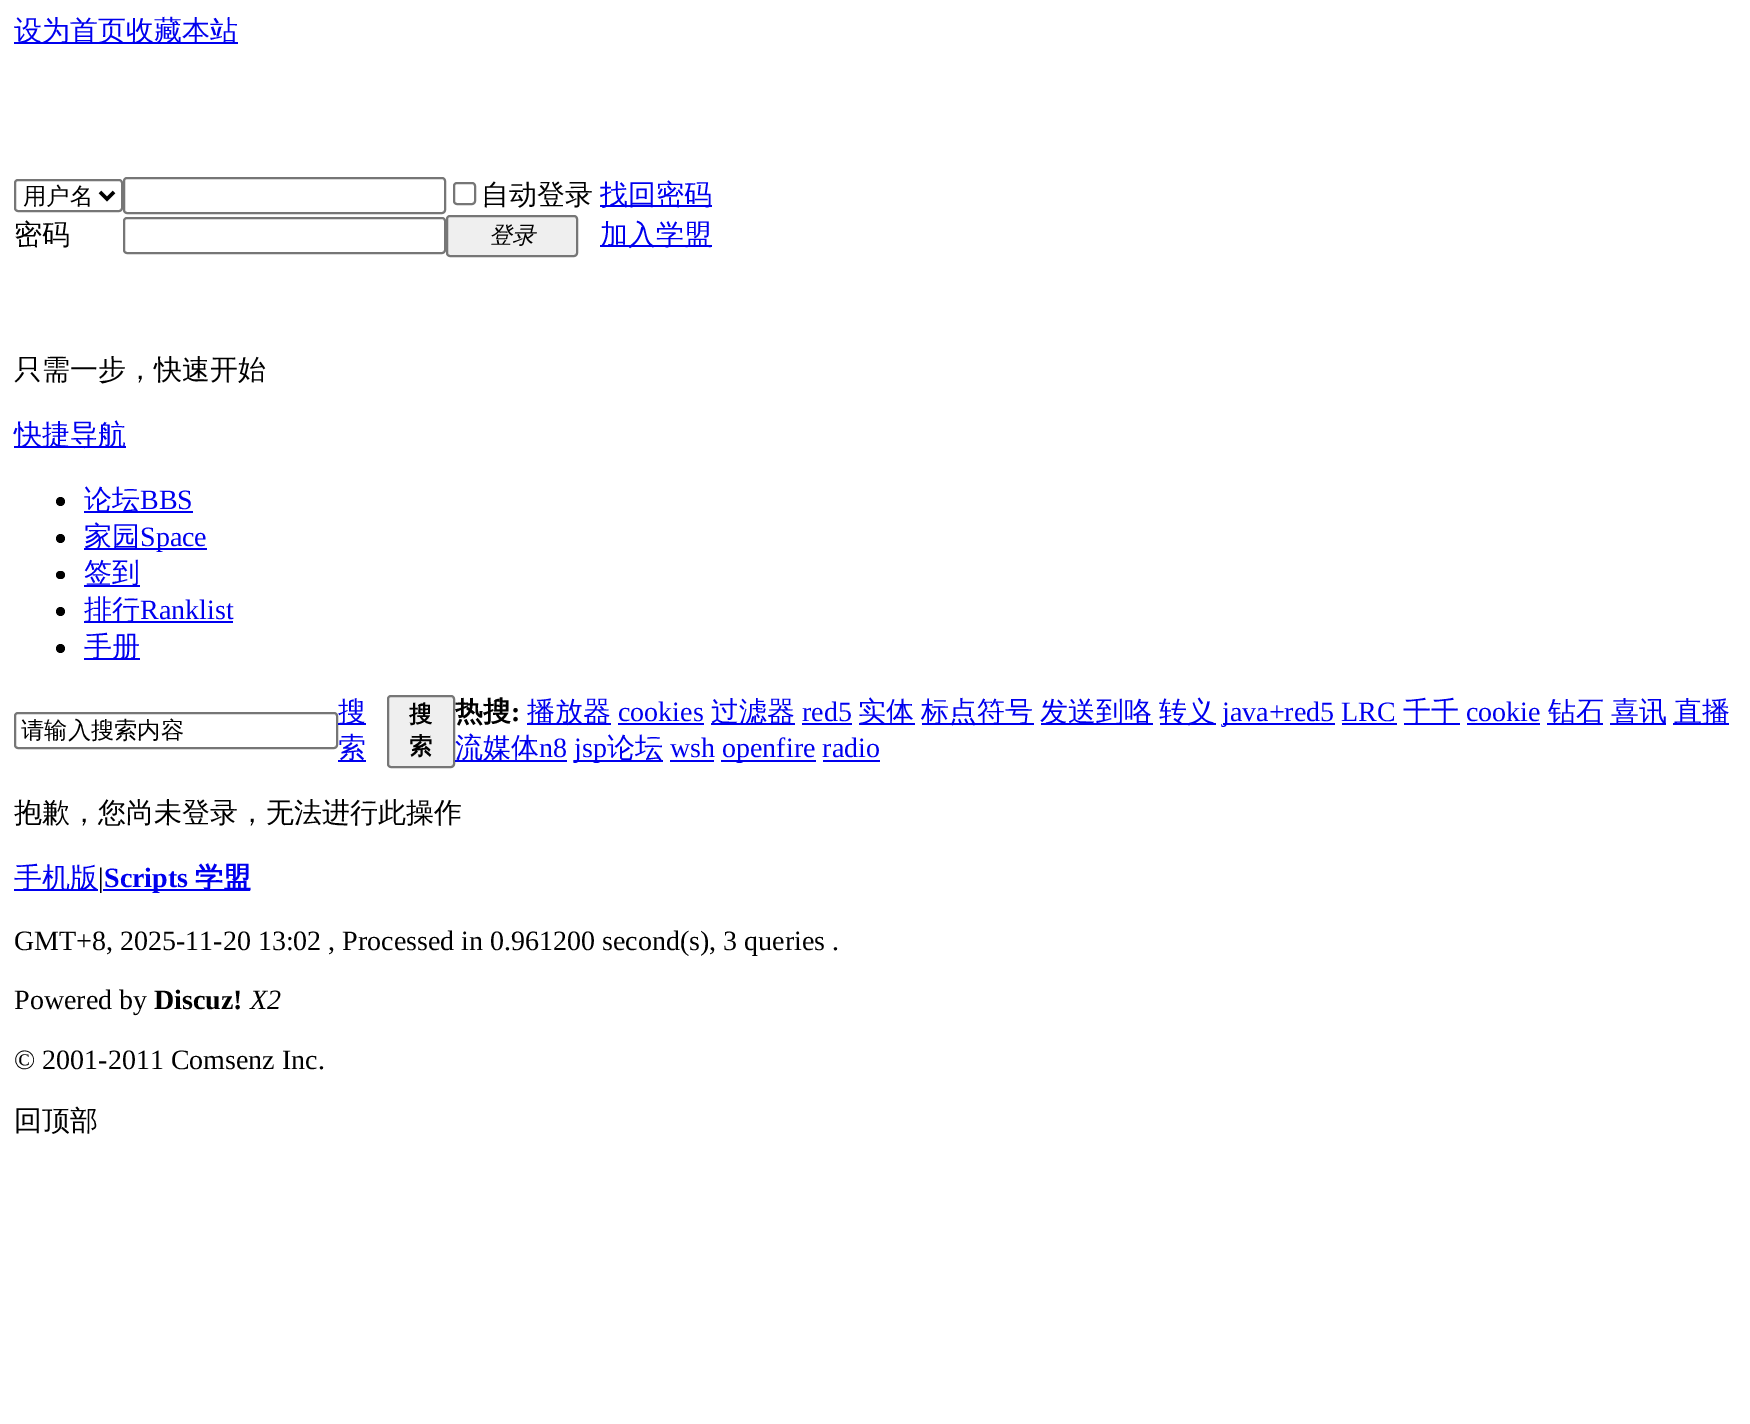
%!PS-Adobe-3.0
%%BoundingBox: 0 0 1750 1424
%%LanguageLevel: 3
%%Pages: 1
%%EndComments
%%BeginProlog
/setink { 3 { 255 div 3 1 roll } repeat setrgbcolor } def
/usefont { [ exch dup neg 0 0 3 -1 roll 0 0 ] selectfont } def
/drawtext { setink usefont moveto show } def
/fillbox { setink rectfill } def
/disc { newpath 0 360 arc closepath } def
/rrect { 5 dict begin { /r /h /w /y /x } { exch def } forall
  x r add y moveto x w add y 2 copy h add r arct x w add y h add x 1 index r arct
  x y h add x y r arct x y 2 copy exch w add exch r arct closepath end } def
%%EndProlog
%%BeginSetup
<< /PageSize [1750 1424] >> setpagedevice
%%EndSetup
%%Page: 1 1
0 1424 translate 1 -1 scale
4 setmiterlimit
0 0 1750 1424 255 255 255 fillbox
14 42 224 2 0 0 238 fillbox
(设为首页收藏本站) 14 40 /WenQuanYiZenHei-Medium 28 0 0 238 drawtext
118 118 118 setink
2 setlinewidth
15 180 107 31 3 rrect stroke
0 0 0 setink
3.5 setlinewidth
100 192 moveto 107 199 lineto 114 192 lineto stroke
(用户名) 23 204 /WenQuanYiZenHei-Medium 23.25 0 0 0 drawtext
118 118 118 setink
2 setlinewidth
124 178 321 35 3 rrect stroke
454 183 21 21 3 rrect stroke
(自动登录) 481 204 /WenQuanYiZenHei-Medium 28 0 0 0 drawtext
600 205 112 2 0 0 238 fillbox
(找回密码) 600 204 /WenQuanYiZenHei-Medium 28 0 0 238 drawtext
(密码) 14 244 /WenQuanYiZenHei-Medium 28 0 0 0 drawtext
118 118 118 setink
124 218 321 35 3 rrect stroke
239 239 239 setink
447 216 130 40 3 rrect gsave fill grestore
118 118 118 setink
stroke
(登录) 489 243 /WenQuanYiZenHei-MediumItalic 23.25 0 0 0 drawtext
600 245 112 2 0 0 238 fillbox
(加入学盟) 600 244 /WenQuanYiZenHei-Medium 28 0 0 238 drawtext
(只需一步，快速开始) 14 379 /WenQuanYiZenHei-Medium 28 0 0 0 drawtext
14 446 112 2 0 0 238 fillbox
(快捷导航) 14 444 /WenQuanYiZenHei-Medium 28 0 0 238 drawtext
0 0 0 setink
60.5 501.5 4.5 disc fill
84 511 109 2 0 0 238 fillbox
(论坛) 84 509 /WenQuanYiZenHei-Medium 28 0 0 238 drawtext
(BBS) 140 509 /LiberationSerif-Regular 28 0 0 238 drawtext
0 0 0 setink
60.5 538.5 4.5 disc fill
84 548 123 2 0 0 238 fillbox
(家园) 84 546 /WenQuanYiZenHei-Medium 28 0 0 238 drawtext
(Space) 140 546 /LiberationSerif-Regular 28 0 0 238 drawtext
0 0 0 setink
56 571 9 8 4 rrect fill
84 585 56 2 0 0 238 fillbox
(签到) 84 582 /WenQuanYiZenHei-Medium 28 0 0 238 drawtext
0 0 0 setink
60.5 611.5 4.5 disc fill
84 621 149 2 0 0 238 fillbox
(排行) 84 619 /WenQuanYiZenHei-Medium 28 0 0 238 drawtext
(Ranklist) 140 619 /LiberationSerif-Regular 28 0 0 238 drawtext
0 0 0 setink
60.5 648.5 4.5 disc fill
84 658 56 2 0 0 238 fillbox
(手册) 84 656 /WenQuanYiZenHei-Medium 28 0 0 238 drawtext
118 118 118 setink
15 713 322 35 3 rrect stroke
(请输入搜索内容) 21 738 /WenQuanYiZenHei-Medium 23.25 0 0 0 drawtext
338 723 28 2 0 0 238 fillbox
(搜) 338 721 /WenQuanYiZenHei-Medium 28 0 0 238 drawtext
338 760 28 2 0 0 238 fillbox
(索) 338 757 /WenQuanYiZenHei-Medium 28 0 0 238 drawtext
239 239 239 setink
388 696 66 71 3 rrect gsave fill grestore
118 118 118 setink
stroke
(搜) 409 722 /WenQuanYiZenHei-Bold 23.25 0 0 0 drawtext
(索) 409 754 /WenQuanYiZenHei-Bold 23.25 0 0 0 drawtext
(热搜) 455 721 /WenQuanYiZenHei-Bold 28 0 0 0 drawtext
(:) 511 721 /LiberationSerif-Bold 28 0 0 0 drawtext
527 723 84 2 0 0 238 fillbox
(播放器) 527 721 /WenQuanYiZenHei-Medium 28 0 0 238 drawtext
(cookies) 618 721 /LiberationSerif-Regular 28 0 0 238 drawtext
618 723 86 2 0 0 238 fillbox
711 723 84 2 0 0 238 fillbox
(过滤器) 711 721 /WenQuanYiZenHei-Medium 28 0 0 238 drawtext
(red5) 802 721 /LiberationSerif-Regular 28 0 0 238 drawtext
802 723 50 2 0 0 238 fillbox
859 723 56 2 0 0 238 fillbox
(实体) 858 721 /WenQuanYiZenHei-Medium 28 0 0 238 drawtext
922 723 112 2 0 0 238 fillbox
(标点符号) 921 721 /WenQuanYiZenHei-Medium 28 0 0 238 drawtext
1041 723 112 2 0 0 238 fillbox
(发送到咯) 1040 721 /WenQuanYiZenHei-Medium 28 0 0 238 drawtext
1160 723 56 2 0 0 238 fillbox
(转义) 1159 721 /WenQuanYiZenHei-Medium 28 0 0 238 drawtext
1223 723 112 2 0 0 238 fillbox
(java+red5 LRC) 1222 721 /LiberationSerif-Regular 28 0 0 238 drawtext
1404 723 56 2 0 0 238 fillbox
(千千) 1403 721 /WenQuanYiZenHei-Medium 28 0 0 238 drawtext
(cookie) 1466 721 /LiberationSerif-Regular 28 0 0 238 drawtext
1467 723 73 2 0 0 238 fillbox
1547 723 56 2 0 0 238 fillbox
(钻石) 1548 721 /WenQuanYiZenHei-Medium 28 0 0 238 drawtext
1610 723 56 2 0 0 238 fillbox
(喜讯) 1611 721 /WenQuanYiZenHei-Medium 28 0 0 238 drawtext
1673 723 56 2 0 0 238 fillbox
(直播) 1674 721 /WenQuanYiZenHei-Medium 28 0 0 238 drawtext
1342 723 55 2 0 0 238 fillbox
455 760 112 2 0 0 238 fillbox
(流媒体) 455 757 /WenQuanYiZenHei-Medium 28 0 0 238 drawtext
(n8) 539 757 /LiberationSerif-Regular 28 0 0 238 drawtext
574 760 89 2 0 0 238 fillbox
(jsp) 574 757 /LiberationSerif-Regular 28 0 0 238 drawtext
(论坛) 607 757 /WenQuanYiZenHei-Medium 28 0 0 238 drawtext
(wsh) 670 757 /LiberationSerif-Regular 28 0 0 238 drawtext
670 760 44 2 0 0 238 fillbox
721 760 95 2 0 0 238 fillbox
(openfire radio) 722 757 /LiberationSerif-Regular 28 0 0 238 drawtext
823 760 57 2 0 0 238 fillbox
(抱歉，您尚未登录，无法进行此操作) 14 822 /WenQuanYiZenHei-Medium 28 0 0 0 drawtext
14 889 84 2 0 0 238 fillbox
(手机版) 14 887 /WenQuanYiZenHei-Medium 28 0 0 238 drawtext
(|) 98 887 /LiberationSerif-Regular 28 0 0 0 drawtext
103 889 147 2 0 0 238 fillbox
(Scripts) 104 887 /LiberationSerif-Bold 28 0 0 238 drawtext
(学盟) 195 887 /WenQuanYiZenHei-Bold 28 0 0 238 drawtext
(GMT+8, 2025-11-20 13:02 , Processed in 0.961200 second\(s\), 3 queries .) 14 950 /LiberationSerif-Regular 28 0 0 0 drawtext
(Powered by) 14 1009 /LiberationSerif-Regular 28 0 0 0 drawtext
(Discuz!) 154 1009 /LiberationSerif-Bold 28 0 0 0 drawtext
(X2) 250 1009 /LiberationSerif-Italic 28 0 0 0 drawtext
(© 2001-2011 Comsenz Inc.) 14 1069 /LiberationSerif-Regular 28 0 0 0 drawtext
(回顶部) 14 1130 /WenQuanYiZenHei-Medium 28 0 0 0 drawtext
showpage
%%EOF
